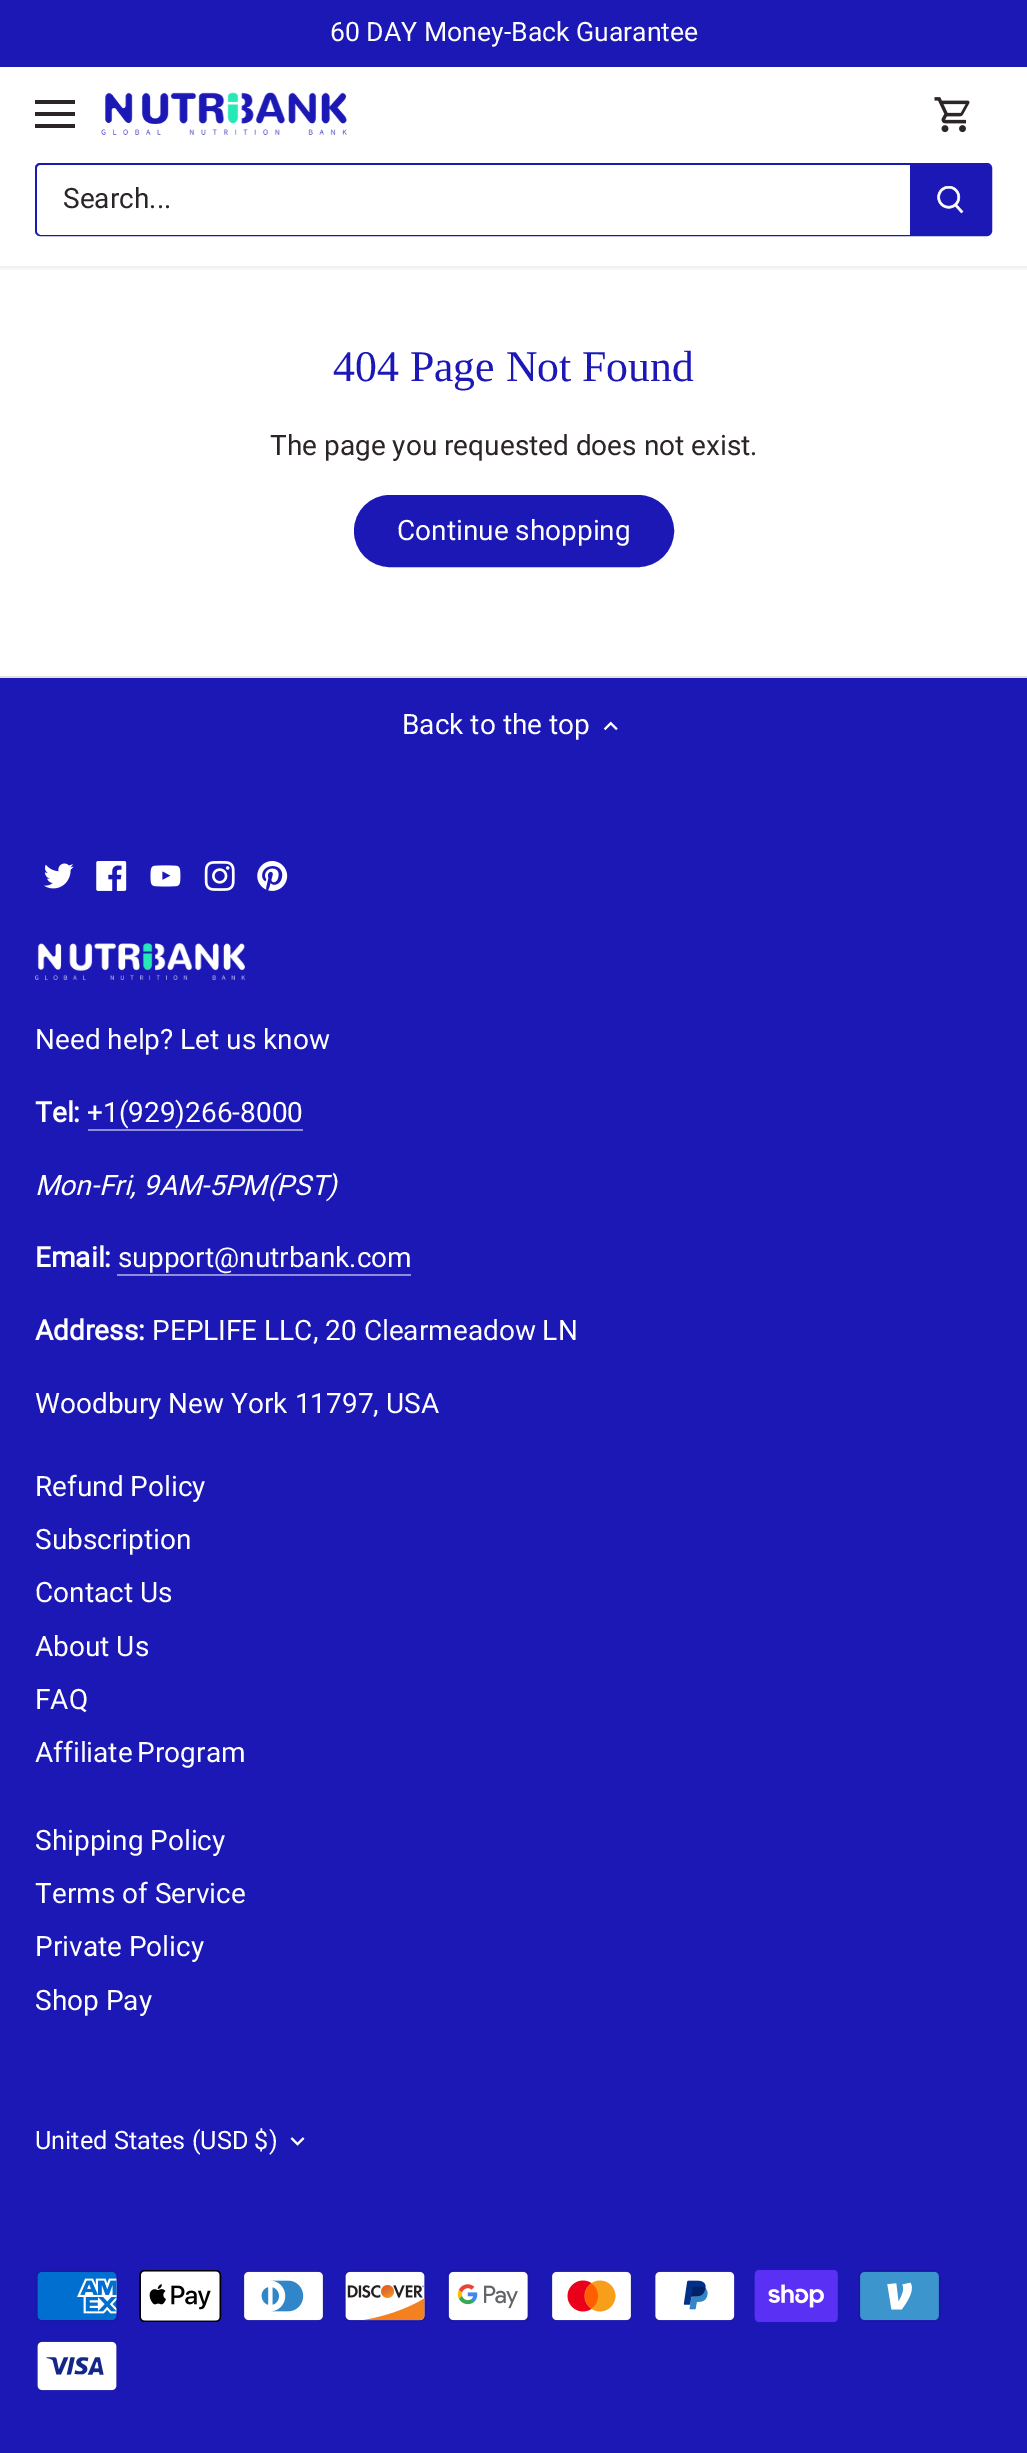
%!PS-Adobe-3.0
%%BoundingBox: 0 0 1027 2453
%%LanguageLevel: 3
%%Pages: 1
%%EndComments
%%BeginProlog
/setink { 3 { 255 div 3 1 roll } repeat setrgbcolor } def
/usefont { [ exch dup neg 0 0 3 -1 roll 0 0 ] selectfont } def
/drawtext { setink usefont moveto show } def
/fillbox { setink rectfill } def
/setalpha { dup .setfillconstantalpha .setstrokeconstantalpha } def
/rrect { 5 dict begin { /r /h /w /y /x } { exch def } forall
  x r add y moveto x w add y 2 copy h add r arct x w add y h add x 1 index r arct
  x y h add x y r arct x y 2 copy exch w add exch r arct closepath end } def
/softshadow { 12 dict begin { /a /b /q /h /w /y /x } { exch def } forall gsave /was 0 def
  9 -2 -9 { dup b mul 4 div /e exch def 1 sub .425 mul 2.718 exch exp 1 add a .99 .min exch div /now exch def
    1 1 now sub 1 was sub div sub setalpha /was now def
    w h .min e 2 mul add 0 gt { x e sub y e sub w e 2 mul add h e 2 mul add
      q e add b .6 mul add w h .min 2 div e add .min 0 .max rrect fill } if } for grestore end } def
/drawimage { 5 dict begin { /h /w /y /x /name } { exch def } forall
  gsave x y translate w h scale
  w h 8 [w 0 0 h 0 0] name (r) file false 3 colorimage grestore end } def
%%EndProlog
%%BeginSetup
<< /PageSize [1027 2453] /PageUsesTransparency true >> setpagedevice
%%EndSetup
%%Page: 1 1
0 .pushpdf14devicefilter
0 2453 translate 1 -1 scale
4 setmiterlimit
0 0 1027 2453 28 24 182 fillbox
0 67 1027 609 255 255 255 fillbox
gsave
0 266 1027 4 rectclip
0 0 0 setink
-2 65 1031 203 0 2.5 0.08 softshadow
grestore
0 63 1027 4 28 24 182 fillbox
(60 DAY Money-Back Guarantee) 330 41 /Roboto-Regular 26.6 255 255 255 drawtext
35 100 40 4 44 37 40 fillbox
35 112 40 4 44 37 40 fillbox
35 124 40 4 44 37 40 fillbox
(assets/img1.rgb) 101 92 246 43 drawimage
(assets/img2.rgb) 934 97 36 36 drawimage
28 24 182 setink
2 setlinewidth
36 164 955 71 4 rrect stroke
gsave
37 165 954 70 4 rrect clip newpath
255 255 255 setink
42 165 moveto 912 165 lineto 912 235 lineto 42 235 lineto 39 235 37 233 37 230 curveto 37 170 lineto 37 167 39 165 42 165 curveto closepath fill
grestore
(Search...) 63 208 /Roboto-Regular 28 44 37 40 drawtext
28 24 182 setink
910 165 moveto 987 165 lineto 989 165 991 167 991 169 curveto 991 231 lineto 991 233 989 235 987 235 curveto 910 235 lineto closepath fill
(assets/img3.rgb) 937 186 27 28 drawimage
(404 Page Not Found) 333 381 /LiberationSerif-Regular 43.75 28 24 182 drawtext
(The page you requested does not exist.) 270 455 /Roboto-Regular 28 44 37 40 drawtext
28 24 182 setink
356 497 316 68 34 rrect gsave fill grestore
4 setlinewidth
stroke
(Continue shopping) 397 540 /Roboto-Regular 28 255 255 255 drawtext
0 676 1027 2 226 226 226 fillbox
(Back to the top) 402 734 /Roboto-Regular 28 255 255 255 drawtext
(assets/img4.rgb) 603 721 15 10 drawimage
(assets/img5.rgb) 44 863 30 26 drawimage
(assets/img6.rgb) 96 861 31 30 drawimage
(assets/img7.rgb) 150 865 31 22 drawimage
(assets/img8.rgb) 204 861 31 30 drawimage
(assets/img9.rgb) 257 861 31 30 drawimage
(assets/img10.rgb) 35 943 210 37 drawimage
(Need help? Let us know) 35 1049 /Roboto-Regular 28 255 255 255 drawtext
(Tel:) 35 1122 /Roboto-Bold 28 255 255 255 drawtext
(+1\(929\)266-8000) 87 1122 /Roboto-Regular 28 255 255 255 drawtext
88 1129 215 2 142 140 219 fillbox
(Mon-Fri, 9AM-5PM\(PST\)) 35 1195 /Roboto-Italic 28 255 255 255 drawtext
(Email:) 35 1267 /Roboto-Bold 28 255 255 255 drawtext
(support@nutrbank.com) 118 1267 /Roboto-Regular 28 255 255 255 drawtext
117 1274 294 2 142 140 219 fillbox
(Address:) 35 1340 /Roboto-Bold 28 255 255 255 drawtext
(PEPLIFE LLC, 20 Clearmeadow LN) 152 1340 /Roboto-Regular 28 255 255 255 drawtext
(Woodbury New York 11797, USA) 35 1413 /Roboto-Regular 28 255 255 255 drawtext
(Refund Policy) 35 1496 /Roboto-Regular 28 255 255 255 drawtext
(Subscription) 35 1549 /Roboto-Regular 28 255 255 255 drawtext
(Contact Us) 35 1602 /Roboto-Regular 28 255 255 255 drawtext
(About Us) 35 1656 /Roboto-Regular 28 255 255 255 drawtext
(FAQ) 35 1709 /Roboto-Regular 28 255 255 255 drawtext
35 1762 moveto -2 0 32 (Affiliate Program) widthshow
(Shipping Policy) 35 1850 /Roboto-Regular 28 255 255 255 drawtext
(Terms of Service) 35 1903 /Roboto-Regular 28 255 255 255 drawtext
(Private Policy) 35 1956 /Roboto-Regular 28 255 255 255 drawtext
(Shop Pay) 35 2010 /Roboto-Regular 28 255 255 255 drawtext
(United States \(USD $\)) 35 2149 /Roboto-Regular 25.25 255 255 255 drawtext
(assets/img11.rgb) 290 2137 15 9 drawimage
(assets/img12.rgb) 35 2270 84 52 drawimage
(assets/img13.rgb) 139 2270 83 52 drawimage
(assets/img14.rgb) 242 2270 83 52 drawimage
(assets/img15.rgb) 343 2270 84 52 drawimage
(assets/img16.rgb) 446 2270 84 52 drawimage
(assets/img17.rgb) 550 2270 83 52 drawimage
(assets/img18.rgb) 653 2270 83 52 drawimage
(assets/img19.rgb) 754 2270 84 52 drawimage
(assets/img20.rgb) 858 2270 83 52 drawimage
(assets/img21.rgb) 35 2340 84 52 drawimage
.poppdf14devicefilter showpage
%%EOF
